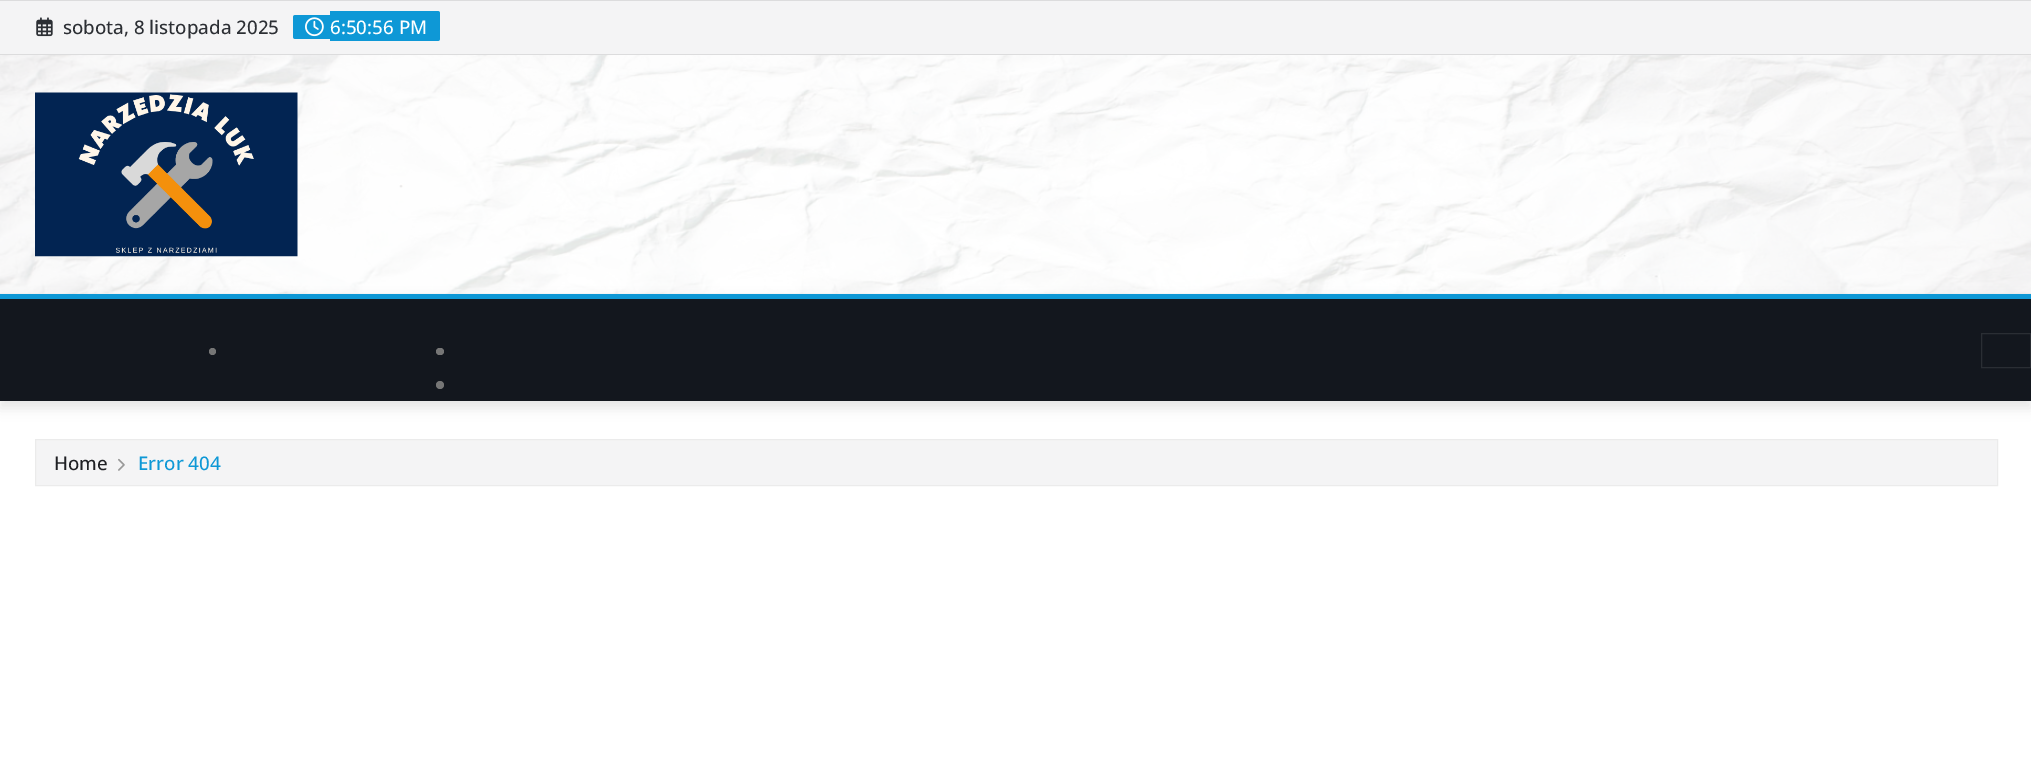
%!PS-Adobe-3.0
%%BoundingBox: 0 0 2031 777
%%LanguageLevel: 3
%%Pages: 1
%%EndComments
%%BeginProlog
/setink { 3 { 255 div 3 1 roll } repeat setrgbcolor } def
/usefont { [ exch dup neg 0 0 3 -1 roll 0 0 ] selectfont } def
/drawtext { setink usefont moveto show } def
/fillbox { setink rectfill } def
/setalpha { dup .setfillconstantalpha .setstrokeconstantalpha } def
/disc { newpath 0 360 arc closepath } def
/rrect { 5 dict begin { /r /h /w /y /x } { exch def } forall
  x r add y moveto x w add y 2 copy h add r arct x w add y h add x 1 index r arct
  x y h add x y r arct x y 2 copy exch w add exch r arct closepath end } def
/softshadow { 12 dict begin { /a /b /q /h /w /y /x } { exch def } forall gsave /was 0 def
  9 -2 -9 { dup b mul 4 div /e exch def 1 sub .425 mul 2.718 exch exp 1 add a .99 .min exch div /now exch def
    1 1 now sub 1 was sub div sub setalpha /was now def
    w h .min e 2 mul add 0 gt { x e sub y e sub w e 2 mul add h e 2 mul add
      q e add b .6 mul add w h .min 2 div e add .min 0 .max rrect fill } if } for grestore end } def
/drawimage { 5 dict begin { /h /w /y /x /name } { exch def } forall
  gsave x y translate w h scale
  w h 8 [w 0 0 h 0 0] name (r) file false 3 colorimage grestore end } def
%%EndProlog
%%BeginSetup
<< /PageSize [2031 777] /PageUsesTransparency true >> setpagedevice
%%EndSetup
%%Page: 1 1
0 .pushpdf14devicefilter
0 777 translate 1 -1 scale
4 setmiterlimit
0 0 2031 777 255 255 255 fillbox
0 1 2031 53 244 244 245 fillbox
0 0 2031 1 220 220 221 fillbox
0 54 2031 1 220 220 221 fillbox
(assets/img1.rgb) 36 17 17 20 drawimage
(sobota, 8 listopada 2025) 63 34 /OpenSans-Medium 18.75 44 47 52 drawtext
14 152 214 setink
295.5 15 moveto 330 15 lineto 330 39 lineto 295.5 39 lineto 294 39 293 38 293 36.5 curveto 293 17.5 lineto 293 16 294 15 295.5 15 curveto closepath fill
(assets/img2.rgb) 305 17 19 20 drawimage
330 11 moveto 437.5 11 lineto 439 11 440 12 440 13.5 curveto 440 38.5 lineto 440 40 439 41 437.5 41 curveto 330 41 lineto closepath fill
(6:50:56 PM) 330 34 /OpenSans-Medium 18.75 255 255 255 drawtext
(assets/img3.rgb) 0 55 2031 239 drawimage
(assets/img4.rgb) 35 92 263 165 drawimage
0 0 0 setink
0 300 2031 108 0 6 0.1 softshadow
0 299 2031 102 19 23 30 fillbox
0 294 2031 5 14 152 214 fillbox
118 118 118 setink
212.5 351.5 3.5 disc fill
436 348 8 7 3.5 rrect fill
440 385 4 disc fill
42 46 52 setink
1981.5 333.5 49 34 rectstroke
244 244 245 setink
35.5 439.5 moveto 1997.5 439.5 lineto 1997.5 485.5 lineto 35.5 485.5 lineto closepath gsave fill grestore
235 235 235 setink
stroke
(Home) 54 470 /OpenSans-Medium 18.75 31 32 36 drawtext
(assets/img5.rgb) 118 458 7 13 drawimage
(Error 404) 138 470 /OpenSans-Medium 18.75 14 152 214 drawtext
.poppdf14devicefilter showpage
%%EOF
